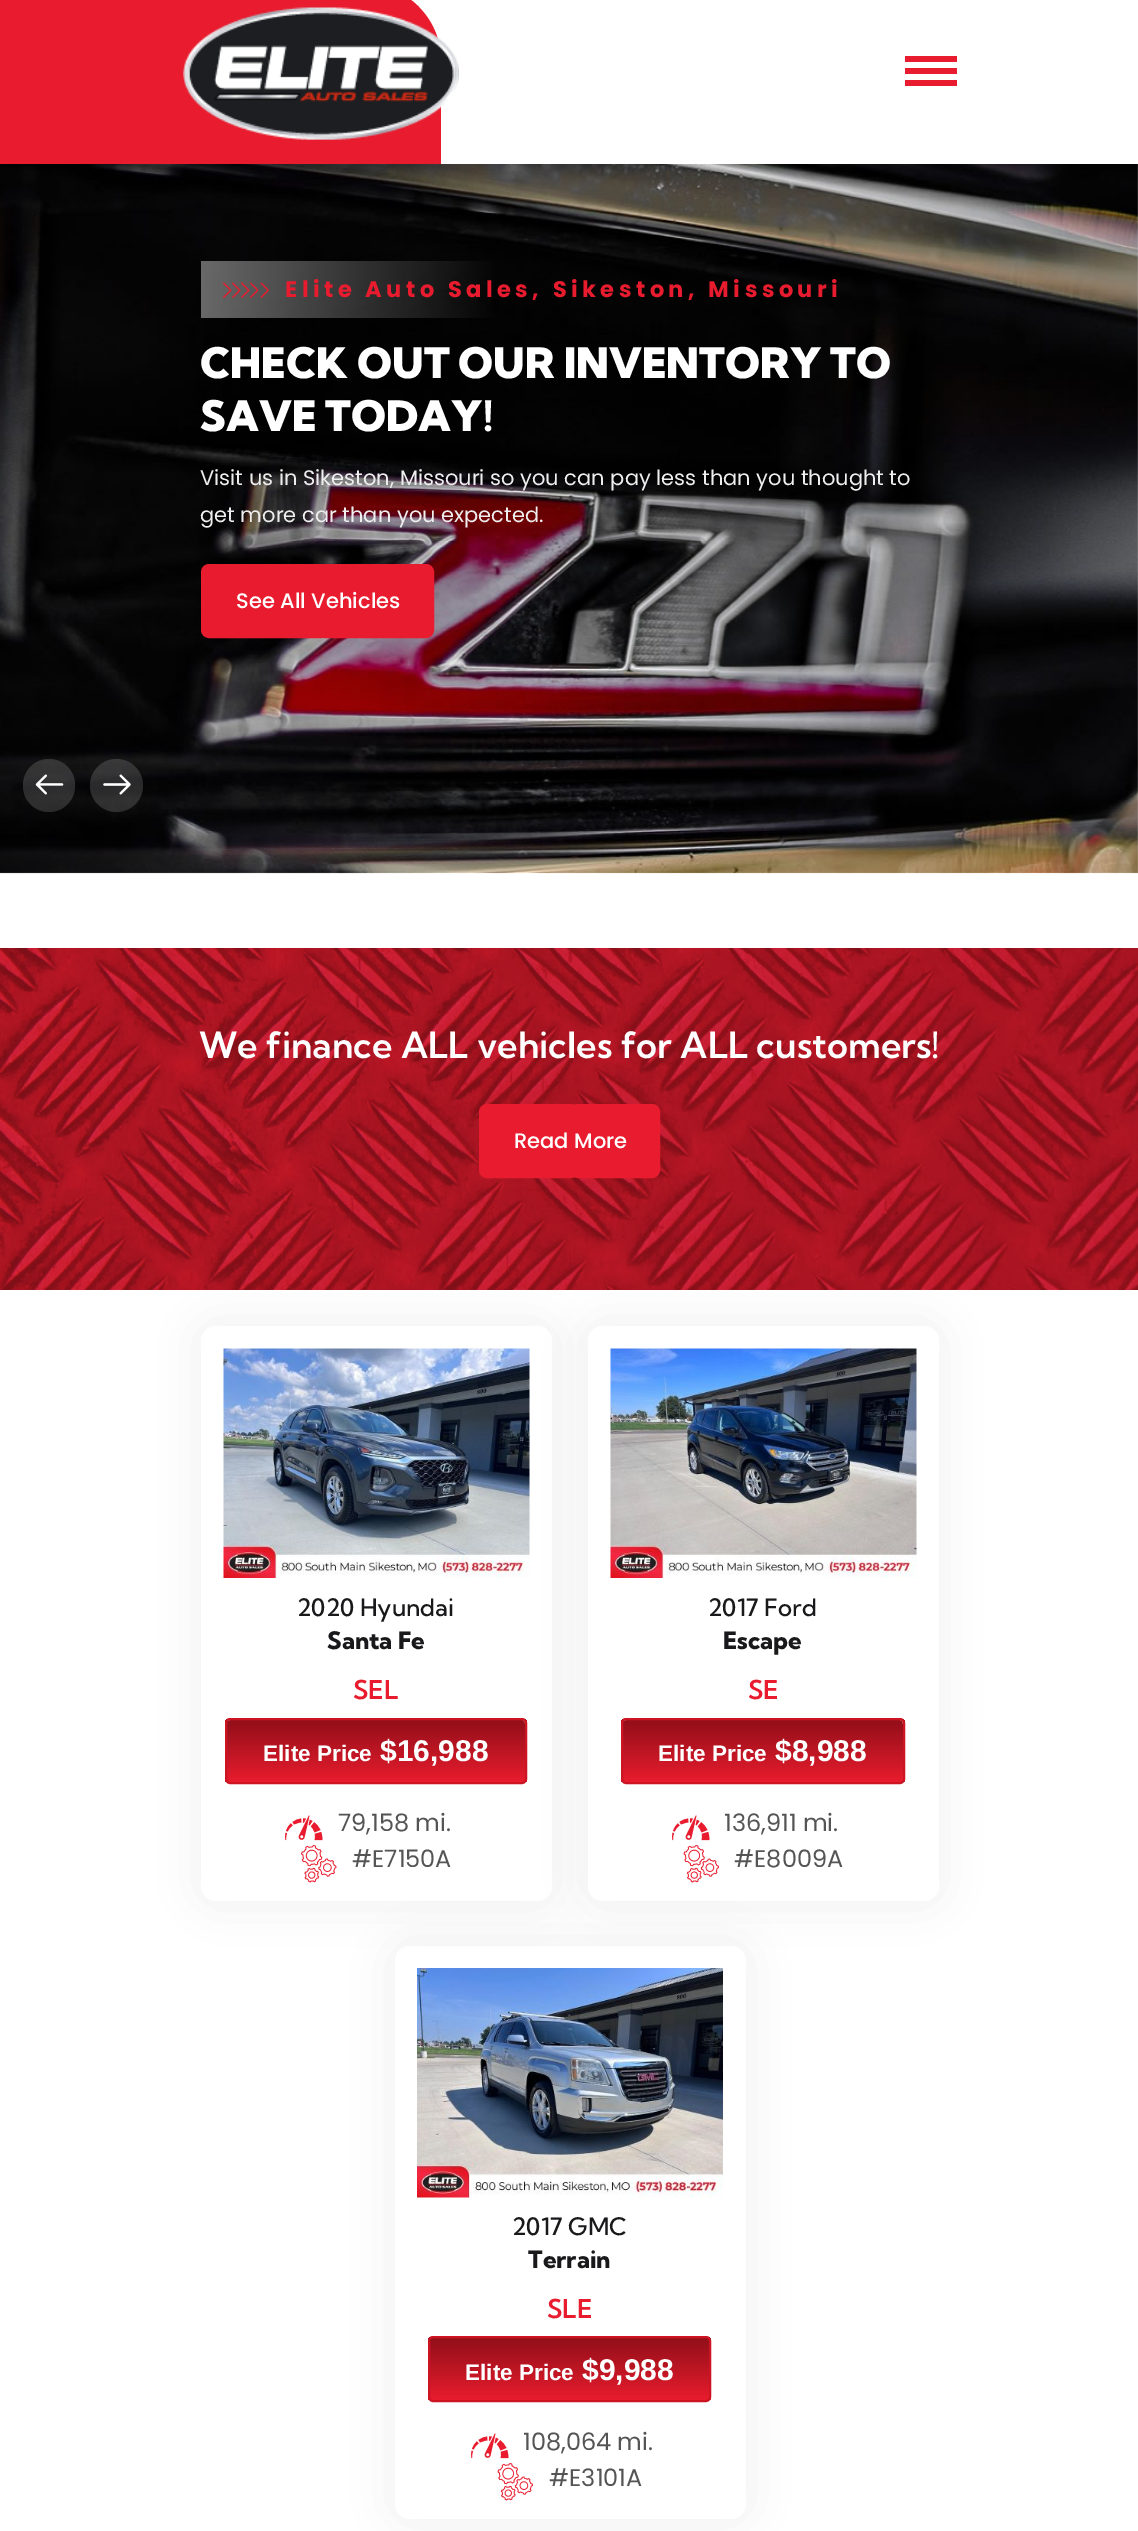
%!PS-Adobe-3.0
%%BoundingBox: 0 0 1138 2531
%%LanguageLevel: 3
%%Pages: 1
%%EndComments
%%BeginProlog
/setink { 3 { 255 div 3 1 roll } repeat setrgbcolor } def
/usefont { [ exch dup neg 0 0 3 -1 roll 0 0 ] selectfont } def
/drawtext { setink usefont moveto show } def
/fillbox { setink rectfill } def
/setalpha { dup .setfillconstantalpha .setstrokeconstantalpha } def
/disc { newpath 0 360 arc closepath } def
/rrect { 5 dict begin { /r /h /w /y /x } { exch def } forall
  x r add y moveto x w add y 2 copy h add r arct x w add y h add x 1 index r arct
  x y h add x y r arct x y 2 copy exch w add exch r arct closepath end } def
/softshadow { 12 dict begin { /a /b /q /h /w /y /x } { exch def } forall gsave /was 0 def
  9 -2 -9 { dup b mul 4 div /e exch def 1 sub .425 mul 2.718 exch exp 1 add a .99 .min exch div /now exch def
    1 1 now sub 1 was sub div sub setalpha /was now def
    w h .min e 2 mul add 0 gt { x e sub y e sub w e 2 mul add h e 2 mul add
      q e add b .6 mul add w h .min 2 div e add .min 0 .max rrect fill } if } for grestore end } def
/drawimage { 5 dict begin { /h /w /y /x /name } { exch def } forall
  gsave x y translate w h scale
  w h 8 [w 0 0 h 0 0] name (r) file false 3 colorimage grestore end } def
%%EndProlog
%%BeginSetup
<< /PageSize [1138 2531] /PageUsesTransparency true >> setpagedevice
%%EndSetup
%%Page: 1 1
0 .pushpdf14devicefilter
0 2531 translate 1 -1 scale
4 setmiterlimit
0 0 1138 2531 255 255 255 fillbox
232 28 46 setink
0 -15 moveto 366 -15 lineto 407.5 -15 441 18.5 441 60 curveto 441 164 lineto 0 164 lineto closepath fill
(assets/img1.rgb) 183 7 276 133 drawimage
905 56 52 6 232 28 46 fillbox
905 68 52 6 232 28 46 fillbox
905 80 52 6 232 28 46 fillbox
(assets/img2.rgb) 0 164 1138 710 drawimage
(assets/img3.rgb) 223 282 9 16 drawimage
(assets/img4.rgb) 232 282 9 16 drawimage
(assets/img5.rgb) 241 282 9 16 drawimage
(assets/img6.rgb) 250 282 9 16 drawimage
(assets/img7.rgb) 260 282 9 16 drawimage
/Poppins-Bold 22.5 usefont
285 297 moveto 4.5 0 (Elite Auto Sales, Sikeston, Missouri) ashow
(CHECK OUT OUR INVENTORY TO) 200 378 /KumbhSans-Black 42 255 255 255 drawtext
(SAVE TODAY!) 200 431 /KumbhSans-Black 42 255 255 255 drawtext
(Visit us in Sikeston, Missouri so you can pay less than you thought to) 200 485 /Poppins-Regular 21 238 238 238 drawtext
(get more car than you expected.) 200 522 /Poppins-Regular 21 238 238 238 drawtext
232 28 46 setink
202 565 126 72 7 rrect gsave fill grestore
2 setlinewidth
stroke
318 565 115 72 7 rrect gsave fill grestore
stroke
(See All Vehicles) 236 608 /Poppins-Medium 21 255 255 255 drawtext
0.15 setalpha
23 759 52 53 26 rrect fill
1 setalpha
(assets/img8.rgb) 35 774 29 21 drawimage
0.15 setalpha
116.5 785.5 26.5 disc fill
1 setalpha
(assets/img9.rgb) 103 774 28 21 drawimage
0 0 0 setink
195 1320 363 587 21 22.5 0.05 softshadow
255 255 255 setink
201 1326 351 575 15 rrect fill
(assets/img11.rgb) 223 1348 307 230 drawimage
gsave
225 1718 302 66 5 rrect clip newpath
gsave 225 1719 moveto 527 1719 lineto 527 1782 lineto 225 1782 lineto closepath clip newpath
<< /ShadingType 2 /ColorSpace /DeviceRGB /Coords [376 1719 376 1782] /Extend [true true] /Function << /FunctionType 3 /Domain [0 1] /Functions [<< /FunctionType 2 /Domain [0 1] /C0 [0.584 0.059 0.102] /C1 [0.584 0.059 0.102] /N 1 >> << /FunctionType 2 /Domain [0 1] /C0 [0.584 0.059 0.102] /C1 [0.91 0.11 0.176] /N 1 >>] /Bounds [0.05] /Encode [0 1 0 1] >> >> shfill grestore
grestore
207 134 108 setink
230 1720 moveto 522 1720 lineto 524 1720 525 1722 525 1724 curveto 525 1722 lineto 525 1720 524 1719 522 1719 curveto 230 1719 lineto 229 1719 227 1720 227 1721 curveto closepath fill
204 20 35 setink
226 1719 300 64 4 rrect stroke
0 0 0 setink
582 1320 363 587 21 22.5 0.05 softshadow
(assets/img10.rgb) 0 948 1138 342 drawimage
(We finance ALL vehicles for ALL customers!) 199 1058 /KumbhSans-SemiBold 36 255 255 255 drawtext
232 28 46 setink
480 1105 98 72 7 rrect gsave fill grestore
stroke
571 1105 88 72 7 rrect gsave fill grestore
stroke
(Read More) 514 1148 /Poppins-Medium 21 255 255 255 drawtext
(2020 Hyundai) 297 1616 /KumbhSans-Medium 24 25 25 27 drawtext
(Santa Fe) 327 1649 /KumbhSans-ExtraBold 24 25 25 27 drawtext
(SEL) 353 1699 /KumbhSans-SemiBold 26 232 28 46 drawtext
(Elite Price) 263 1761 /LiberationSans-Bold 22.5 255 255 255 drawtext
($16,988) 380 1761 /LiberationSans-Bold 30 255 255 255 drawtext
(assets/img12.rgb) 285 1815 38 26 drawimage
(79,158 mi.) 338 1831 /Poppins-Regular 24 85 85 85 drawtext
255 255 255 setink
588 1326 351 575 15 rrect fill
0 0 0 setink
389 1940 363 585 21 22.5 0.05 softshadow
(assets/img13.rgb) 301 1845 36 38 drawimage
(#E7150A) 352 1867 /Poppins-Regular 24 85 85 85 drawtext
(assets/img14.rgb) 610 1348 307 230 drawimage
(2017 Ford) 708 1616 /KumbhSans-Medium 24 25 25 27 drawtext
(Escape) 723 1649 /KumbhSans-ExtraBold 24 25 25 27 drawtext
(SE) 748 1699 /KumbhSans-SemiBold 26 232 28 46 drawtext
gsave
621 1718 284 66 5 rrect clip newpath
gsave 621 1719 moveto 905 1719 lineto 905 1782 lineto 621 1782 lineto closepath clip newpath
<< /ShadingType 2 /ColorSpace /DeviceRGB /Coords [763 1719 763 1782] /Extend [true true] /Function << /FunctionType 3 /Domain [0 1] /Functions [<< /FunctionType 2 /Domain [0 1] /C0 [0.584 0.059 0.102] /C1 [0.584 0.059 0.102] /N 1 >> << /FunctionType 2 /Domain [0 1] /C0 [0.584 0.059 0.102] /C1 [0.91 0.11 0.176] /N 1 >>] /Bounds [0.05] /Encode [0 1 0 1] >> >> shfill grestore
grestore
207 134 108 setink
626 1720 moveto 900 1720 lineto 902 1721 lineto 903 1724 lineto 903 1722 lineto 903 1720 902 1719 900 1719 curveto 626 1719 lineto 625 1719 623 1720 623 1721 curveto closepath fill
204 20 35 setink
622 1719 282 64 4 rrect stroke
(Elite Price) 658 1761 /LiberationSans-Bold 22.5 255 255 255 drawtext
($8,988) 775 1761 /LiberationSans-Bold 30 255 255 255 drawtext
(assets/img12.rgb) 672 1815 38 26 drawimage
(136,911 mi.) 724 1831 /Poppins-Regular 24 85 85 85 drawtext
(assets/img15.rgb) 683 1845 36 38 drawimage
(#E8009A) 734 1867 /Poppins-Regular 24 85 85 85 drawtext
255 255 255 setink
395 1946 351 573 15 rrect fill
(assets/img16.rgb) 417 1968 306 230 drawimage
(2017 GMC) 512 2235 /KumbhSans-Medium 24 25 25 27 drawtext
(Terrain) 528 2268 /KumbhSans-ExtraBold 24 25 25 27 drawtext
(SLE) 547 2318 /KumbhSans-SemiBold 26 232 28 46 drawtext
gsave
428 2336 283 66 5 rrect clip newpath
gsave 428 2337 moveto 711 2337 lineto 711 2400 lineto 428 2400 lineto closepath clip newpath
<< /ShadingType 2 /ColorSpace /DeviceRGB /Coords [569 2337 569 2400] /Extend [true true] /Function << /FunctionType 3 /Domain [0 1] /Functions [<< /FunctionType 2 /Domain [0 1] /C0 [0.584 0.059 0.102] /C1 [0.584 0.059 0.102] /N 1 >> << /FunctionType 2 /Domain [0 1] /C0 [0.584 0.059 0.102] /C1 [0.91 0.11 0.176] /N 1 >>] /Bounds [0.05] /Encode [0 1 0 1] >> >> shfill grestore
grestore
204 20 35 setink
429 2337 281 64 4 rrect stroke
(Elite Price) 465 2380 /LiberationSans-Bold 22.5 255 255 255 drawtext
($9,988) 582 2380 /LiberationSans-Bold 30 255 255 255 drawtext
(assets/img12.rgb) 471 2433 38 26 drawimage
(108,064 mi.) 523 2450 /Poppins-Regular 24 85 85 85 drawtext
(assets/img17.rgb) 497 2463 36 38 drawimage
(#E3101A) 549 2486 /Poppins-Regular 24 85 85 85 drawtext
.poppdf14devicefilter showpage
%%EOF
